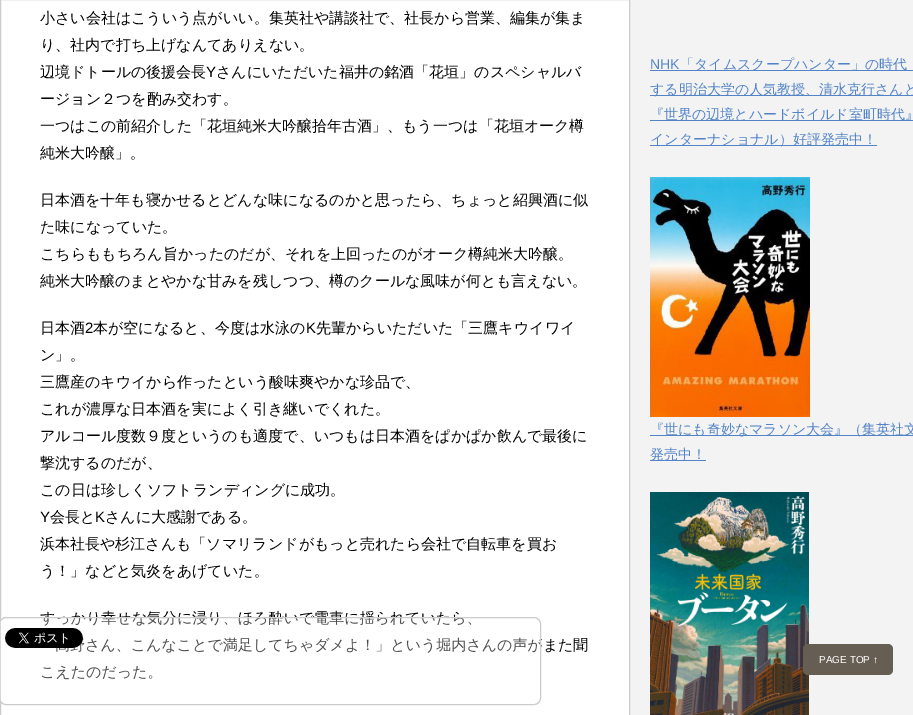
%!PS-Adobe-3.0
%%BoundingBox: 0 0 913 715
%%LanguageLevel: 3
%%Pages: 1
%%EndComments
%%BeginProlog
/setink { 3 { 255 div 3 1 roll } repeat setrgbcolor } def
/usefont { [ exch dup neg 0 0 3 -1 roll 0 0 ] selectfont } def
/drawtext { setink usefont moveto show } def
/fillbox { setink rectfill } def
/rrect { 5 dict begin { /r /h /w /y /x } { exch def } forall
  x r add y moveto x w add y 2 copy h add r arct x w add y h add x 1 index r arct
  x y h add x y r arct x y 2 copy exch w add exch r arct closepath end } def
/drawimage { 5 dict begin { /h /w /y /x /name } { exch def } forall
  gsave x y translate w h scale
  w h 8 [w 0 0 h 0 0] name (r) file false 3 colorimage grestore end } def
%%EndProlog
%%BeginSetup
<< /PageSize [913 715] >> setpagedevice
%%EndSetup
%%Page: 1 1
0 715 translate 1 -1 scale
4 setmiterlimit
0 0 913 715 243 243 243 fillbox
255 255 255 setink
0.5 -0.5 moveto 629.5 -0.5 lineto 629.5 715.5 lineto 0.5 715.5 lineto closepath gsave fill grestore
204 204 204 setink
stroke
(小さい会社はこういう点がいい。集英社や講談社で、社長から営業、編集が集ま) 40 23 /WenQuanYiZenHei-Medium 15 0 0 0 drawtext
(り、社内で打ち上げなんてありえない。) 40 50 /WenQuanYiZenHei-Medium 15 0 0 0 drawtext
(辺境ドトールの後援会長) 40 77 /WenQuanYiZenHei-Medium 15 0 0 0 drawtext
(Y) 206 77 /LiberationSans-Regular 15 0 0 0 drawtext
(さんにいただいた福井の銘酒「花垣」のスペシャルバ) 216 77 /WenQuanYiZenHei-Medium 15 0 0 0 drawtext
(ージョン２つを酌み交わす。) 40 104 /WenQuanYiZenHei-Medium 15 0 0 0 drawtext
(一つはこの前紹介した「花垣純米大吟醸拾年古酒」、もう一つは「花垣オーク樽) 40 131 /WenQuanYiZenHei-Medium 15 0 0 0 drawtext
(純米大吟醸」。) 40 158 /WenQuanYiZenHei-Medium 15 0 0 0 drawtext
(日本酒を十年も寝かせるとどんな味になるのかと思ったら、ちょっと紹興酒に似) 40 205 /WenQuanYiZenHei-Medium 15 0 0 0 drawtext
(た味になっていた。) 40 232 /WenQuanYiZenHei-Medium 15 0 0 0 drawtext
(こちらももちろん旨かったのだが、それを上回ったのがオーク樽純米大吟醸。) 40 259 /WenQuanYiZenHei-Medium 15 0 0 0 drawtext
(純米大吟醸のまとやかな甘みを残しつつ、樽のクールな風味が何とも言えない。) 40 286 /WenQuanYiZenHei-Medium 15 0 0 0 drawtext
(日本酒) 40 333 /WenQuanYiZenHei-Medium 15 0 0 0 drawtext
(2) 85 333 /LiberationSans-Regular 15 0 0 0 drawtext
(本が空になると、今度は水泳の) 93 333 /WenQuanYiZenHei-Medium 15 0 0 0 drawtext
(K) 306 333 /LiberationSans-Regular 15 0 0 0 drawtext
(先輩からいただいた「三鷹キウイワイ) 316 333 /WenQuanYiZenHei-Medium 15 0 0 0 drawtext
(ン」。) 40 360 /WenQuanYiZenHei-Medium 15 0 0 0 drawtext
(三鷹産のキウイから作ったという酸味爽やかな珍品で、) 40 387 /WenQuanYiZenHei-Medium 15 0 0 0 drawtext
(これが濃厚な日本酒を実によく引き継いでくれた。) 40 414 /WenQuanYiZenHei-Medium 15 0 0 0 drawtext
(アルコール度数９度というのも適度で、いつもは日本酒をぱかぱか飲んで最後に) 40 441 /WenQuanYiZenHei-Medium 15 0 0 0 drawtext
(撃沈するのだが、) 40 468 /WenQuanYiZenHei-Medium 15 0 0 0 drawtext
(この日は珍しくソフトランディングに成功。) 40 495 /WenQuanYiZenHei-Medium 15 0 0 0 drawtext
(Y) 40 522 /LiberationSans-Regular 15 0 0 0 drawtext
(会長と) 50 522 /WenQuanYiZenHei-Medium 15 0 0 0 drawtext
(K) 95 522 /LiberationSans-Regular 15 0 0 0 drawtext
(さんに大感謝である。) 105 522 /WenQuanYiZenHei-Medium 15 0 0 0 drawtext
(浜本社長や杉江さんも「ソマリランドがもっと売れたら会社で自転車を買お) 40 549 /WenQuanYiZenHei-Medium 15 0 0 0 drawtext
(う！」などと気炎をあげていた。) 40 576 /WenQuanYiZenHei-Medium 15 0 0 0 drawtext
(すっかり幸せな気分に浸り、ほろ酔いで電車に揺られていたら、) 40 623 /WenQuanYiZenHei-Medium 15 0 0 0 drawtext
(さん、こんなことで満足してちゃダメよ！」という堀内さんの声がまた聞) 85 650 /WenQuanYiZenHei-Medium 15 0 0 0 drawtext
(こえたのだった。) 40 677 /WenQuanYiZenHei-Medium 15 0 0 0 drawtext
(NHK) 650 69 /LiberationSans-Regular 14 84 132 200 drawtext
650 70 263 1 84 132 200 fillbox
(「タイムスクープハンター」の時代) 680 69 /WenQuanYiZenHei-Medium 14 84 132 200 drawtext
650 95 263 1 84 132 200 fillbox
(する明治大学の人気教授、清水克行さんと) 650 94 /WenQuanYiZenHei-Medium 14 84 132 200 drawtext
650 120 263 1 84 132 200 fillbox
(『世界の辺境とハードボイルド室町時代』) 650 119 /WenQuanYiZenHei-Medium 14 84 132 200 drawtext
650 145 227 1 84 132 200 fillbox
(インターナショナル）好評発売中！) 650 144 /WenQuanYiZenHei-Medium 14 84 132 200 drawtext
(assets/img1.rgb) 650 177 160 240 drawimage
650 435 263 1 84 132 200 fillbox
(『世にも奇妙なマラソン大会』（集英社文) 650 434 /WenQuanYiZenHei-Medium 14 84 132 200 drawtext
650 460 56 1 84 132 200 fillbox
(発売中！) 650 459 /WenQuanYiZenHei-Medium 14 84 132 200 drawtext
(assets/img2.rgb) 650 492 159 223 drawimage
(assets/img3.rgb) 0 617 541 86 drawimage
204 204 204 setink
-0.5 617.5 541 87 6.5 rrect stroke
(assets/img4.rgb) 5 628 78 20 drawimage
102 94 83 setink
803 644 90 31 5 rrect fill
(PAGE TOP ↑) 819 663 /LiberationSans-Regular 10 255 255 255 drawtext
showpage
%%EOF
